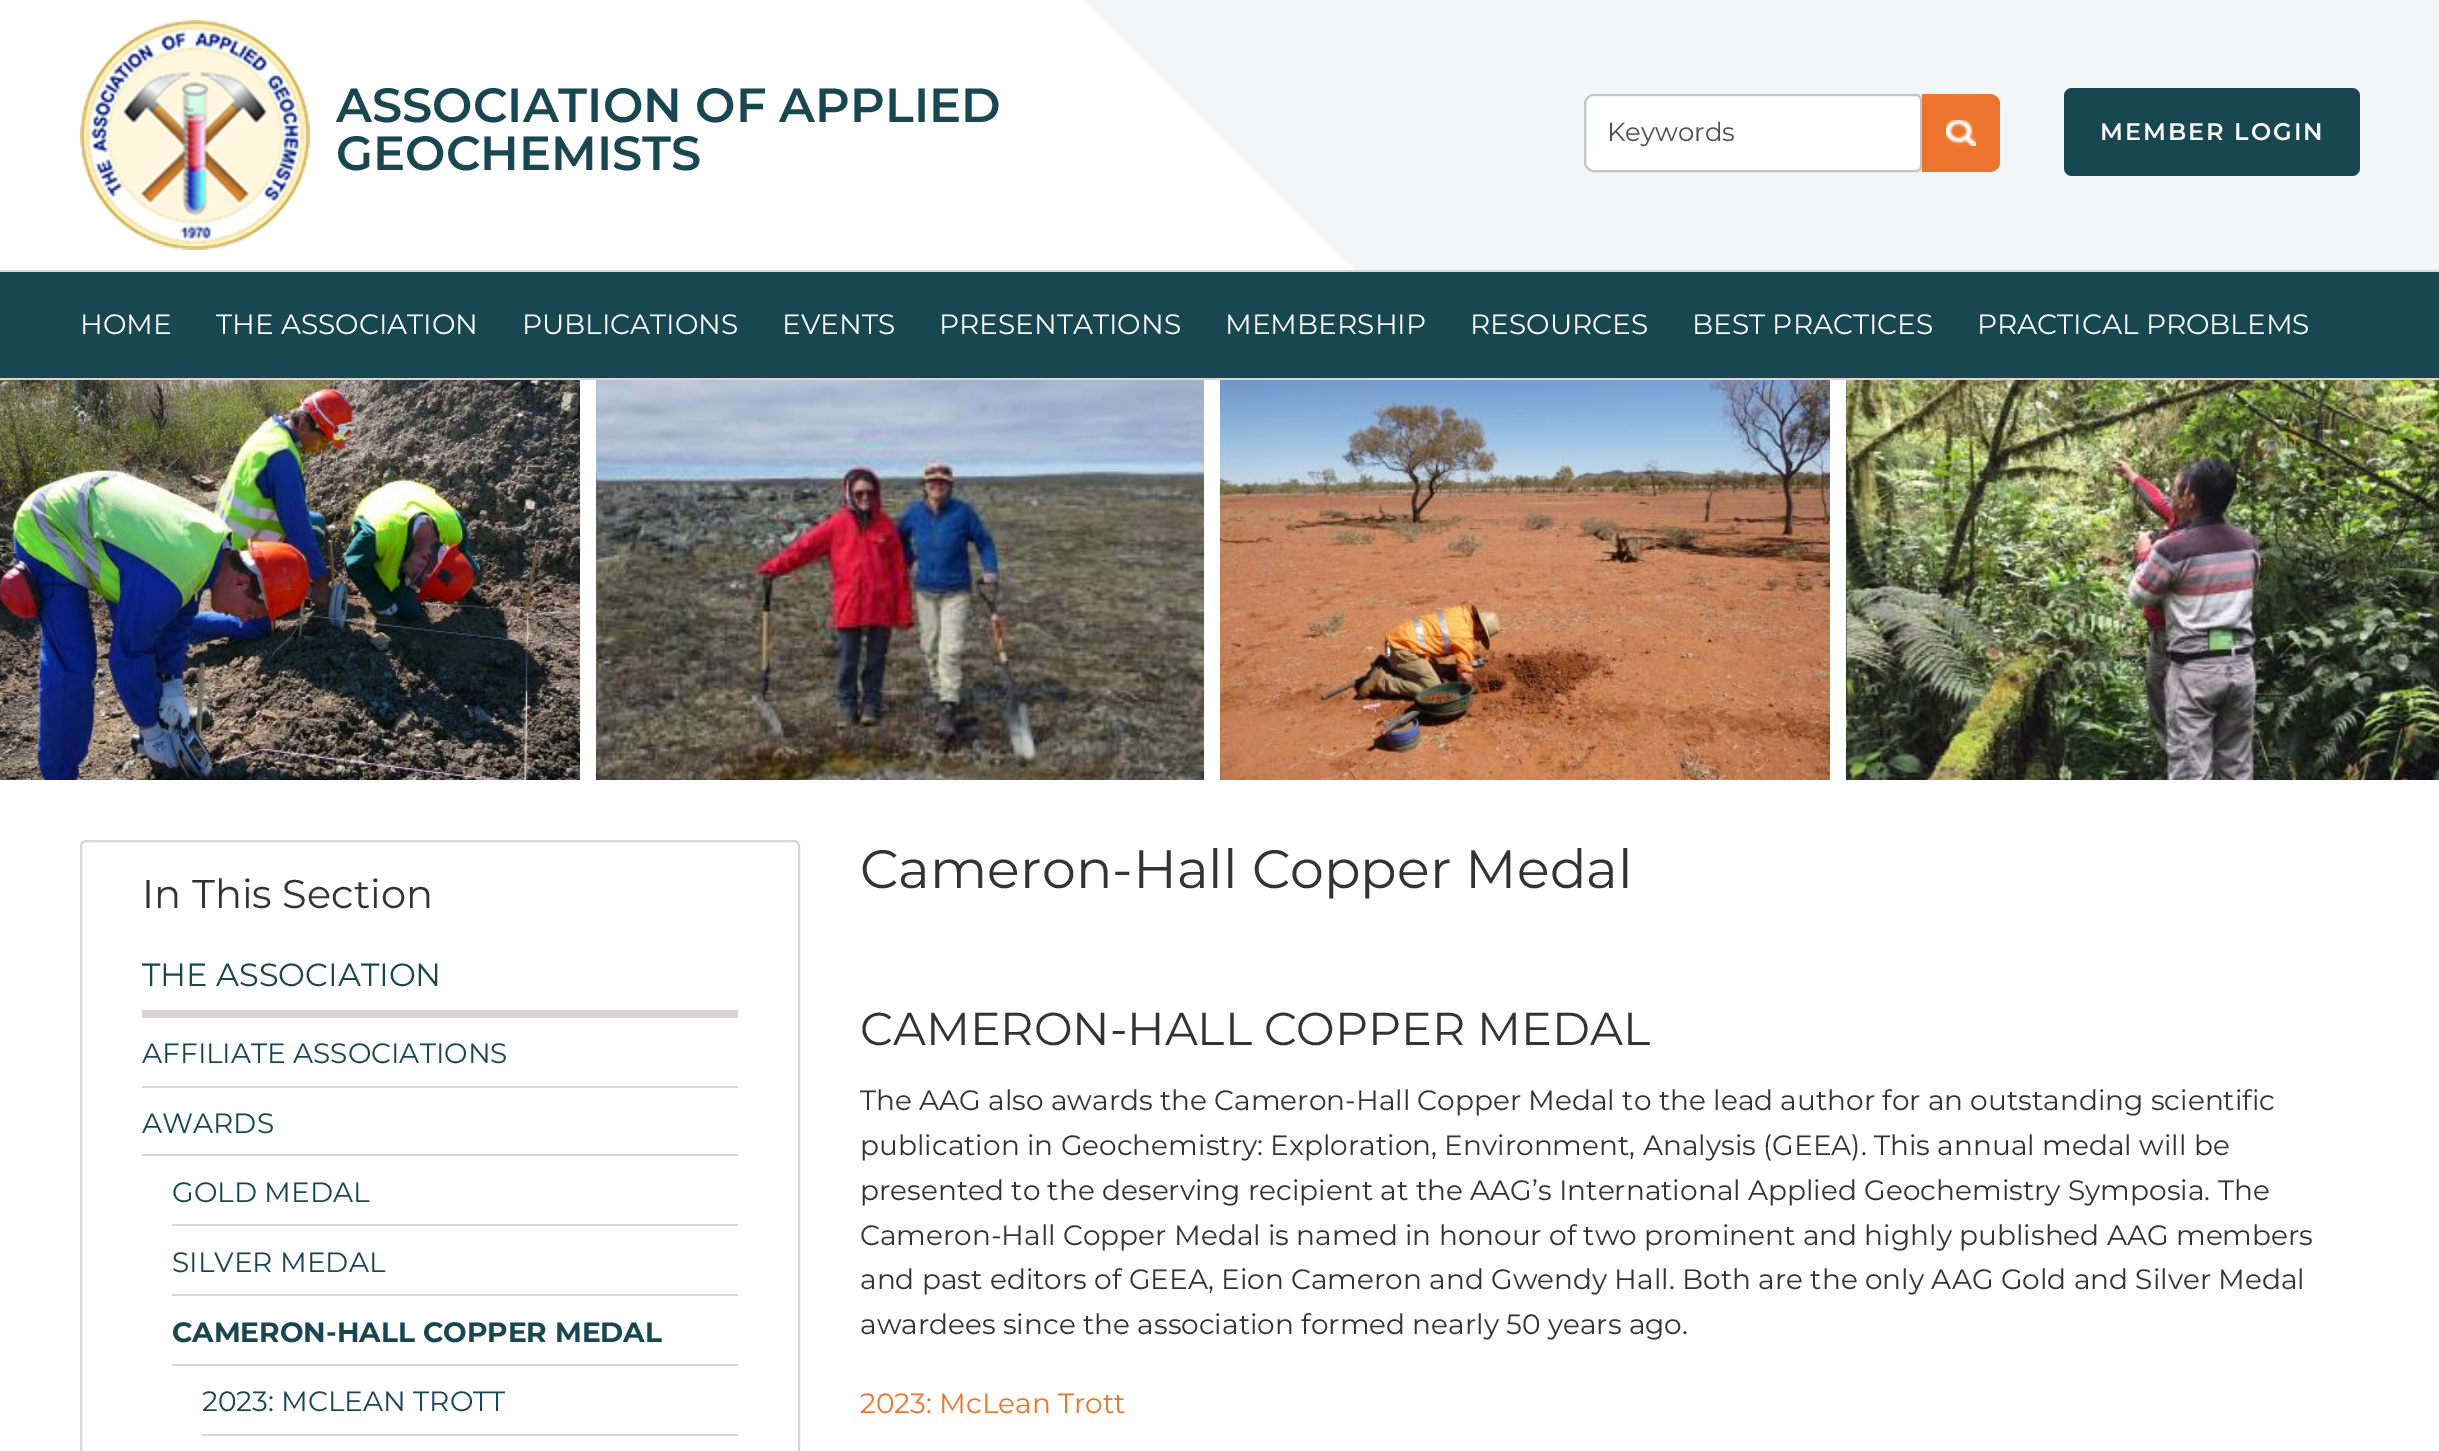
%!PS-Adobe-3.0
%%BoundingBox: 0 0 2439 1451
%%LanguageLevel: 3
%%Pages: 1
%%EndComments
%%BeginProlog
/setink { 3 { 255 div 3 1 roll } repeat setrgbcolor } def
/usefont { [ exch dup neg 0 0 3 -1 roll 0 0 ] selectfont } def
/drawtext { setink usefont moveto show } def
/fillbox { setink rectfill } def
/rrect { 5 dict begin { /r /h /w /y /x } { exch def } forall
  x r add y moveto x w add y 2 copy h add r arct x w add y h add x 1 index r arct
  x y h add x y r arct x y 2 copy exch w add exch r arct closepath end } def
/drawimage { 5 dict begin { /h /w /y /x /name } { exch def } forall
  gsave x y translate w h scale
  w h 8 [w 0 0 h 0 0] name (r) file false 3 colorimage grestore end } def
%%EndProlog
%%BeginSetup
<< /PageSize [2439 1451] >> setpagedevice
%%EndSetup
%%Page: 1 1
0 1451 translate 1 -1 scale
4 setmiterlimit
0 0 2439 1451 255 255 255 fillbox
243 246 246 setink
1085 0 moveto 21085 0 lineto 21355 270 lineto 1355 270 lineto closepath fill
(assets/img1.rgb) 80 20 230 230 drawimage
(ASSOCIATION OF APPLIED) 336 122 /Montserrat-SemiBold 48 24 71 82 drawtext
(GEOCHEMISTS) 336 170 /Montserrat-SemiBold 48 24 71 82 drawtext
255 255 255 setink
1594 95 moveto 1916 95 lineto 1919 95 1921 97 1921 100 curveto 1921 166 lineto 1921 169 1919 171 1916 171 curveto 1594 171 lineto 1589 171 1585 167 1585 162 curveto 1585 104 lineto 1585 99 1589 95 1594 95 curveto closepath gsave fill grestore
194 197 197 setink
2 setlinewidth
stroke
(Keywords) 1607 141 /Montserrat-Regular 26 78 78 78 drawtext
237 118 47 setink
1922 94 moveto 1990 94 lineto 1995.5 94 2000 98.5 2000 104 curveto 2000 162 lineto 2000 167.5 1995.5 172 1990 172 curveto 1922 172 lineto closepath fill
(assets/img2.rgb) 1946 120 30 26 drawimage
24 71 82 setink
2064 88 296 88 8 rrect fill
/Montserrat-SemiBold 24 usefont
255 255 255 setink
2100 140 moveto 2 0 (MEMBER LOGIN) ashow
0 272 2439 106 24 71 82 fillbox
0 270 2439 2 221 213 213 fillbox
0 378 2439 2 221 213 213 fillbox
(HOME) 80 334 /Montserrat-Regular 28 255 255 255 drawtext
(THE ASSOCIATION) 216 334 /Montserrat-Regular 28 255 255 255 drawtext
(PUBLICATIONS) 522 334 /Montserrat-Regular 28 255 255 255 drawtext
(EVENTS) 782 334 /Montserrat-Regular 28 255 255 255 drawtext
(PRESENTATIONS) 939 334 /Montserrat-Regular 28 255 255 255 drawtext
(MEMBERSHIP) 1225 334 /Montserrat-Regular 28 255 255 255 drawtext
(RESOURCES) 1470 334 /Montserrat-Regular 28 255 255 255 drawtext
(BEST PRACTICES) 1692 334 /Montserrat-Regular 28 255 255 255 drawtext
(PRACTICAL PROBLEMS) 1977 334 /Montserrat-Regular 28 255 255 255 drawtext
(assets/img3.rgb) 0 380 580 400 drawimage
(assets/img4.rgb) 596 380 608 400 drawimage
(assets/img5.rgb) 1220 380 610 400 drawimage
(assets/img6.rgb) 1846 380 593 400 drawimage
221 213 213 setink
81 841 718 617 5 rrect stroke
(In This Section) 142 908 /Montserrat-Regular 40 51 51 51 drawtext
142 1010 596 8 221 213 211 fillbox
(THE ASSOCIATION) 142 986 /Montserrat-Regular 32 24 71 82 drawtext
142 1086 596 2 221 213 213 fillbox
(AFFILIATE ASSOCIATIONS) 142 1063 /Montserrat-Regular 28 24 71 82 drawtext
142 1154 596 2 221 213 213 fillbox
(AWARDS) 142 1133 /Montserrat-Regular 28 24 71 82 drawtext
172 1224 566 2 221 213 213 fillbox
(GOLD MEDAL) 172 1202 /Montserrat-Regular 28 24 71 82 drawtext
172 1294 566 2 221 213 213 fillbox
(SILVER MEDAL) 172 1272 /Montserrat-Regular 28 24 71 82 drawtext
172 1364 566 2 221 213 213 fillbox
(CAMERON-HALL COPPER MEDAL) 172 1342 /Montserrat-Bold 28 24 71 82 drawtext
202 1434 536 2 221 213 213 fillbox
(2023: MCLEAN TROTT) 202 1411 /Montserrat-Regular 28 24 71 82 drawtext
(Cameron-Hall Copper Medal) 860 888 /Montserrat-Regular 54 51 51 51 drawtext
(CAMERON-HALL COPPER MEDAL) 860 1045 /Montserrat-Regular 46 51 51 51 drawtext
(The AAG also awards the Cameron-Hall Copper Medal to the lead author for an outstanding scientific) 860 1110 /Montserrat-Regular 28 51 51 51 drawtext
(publication in Geochemistry: Exploration, Environment, Analysis \(GEEA\). This annual medal will be) 860 1155 /Montserrat-Regular 28 51 51 51 drawtext
(presented to the deserving recipient at the AAG’s International Applied Geochemistry Symposia. The) 860 1200 /Montserrat-Regular 28 51 51 51 drawtext
(Cameron-Hall Copper Medal is named in honour of two prominent and highly published AAG members) 860 1245 /Montserrat-Regular 28 51 51 51 drawtext
(and past editors of GEEA, Eion Cameron and Gwendy Hall. Both are the only AAG Gold and Silver Medal) 860 1289 /Montserrat-Regular 28 51 51 51 drawtext
(awardees since the association formed nearly 50 years ago.) 860 1334 /Montserrat-Regular 28 51 51 51 drawtext
(2023: McLean Trott) 860 1413 /Montserrat-Regular 28 237 118 47 drawtext
showpage
%%EOF
